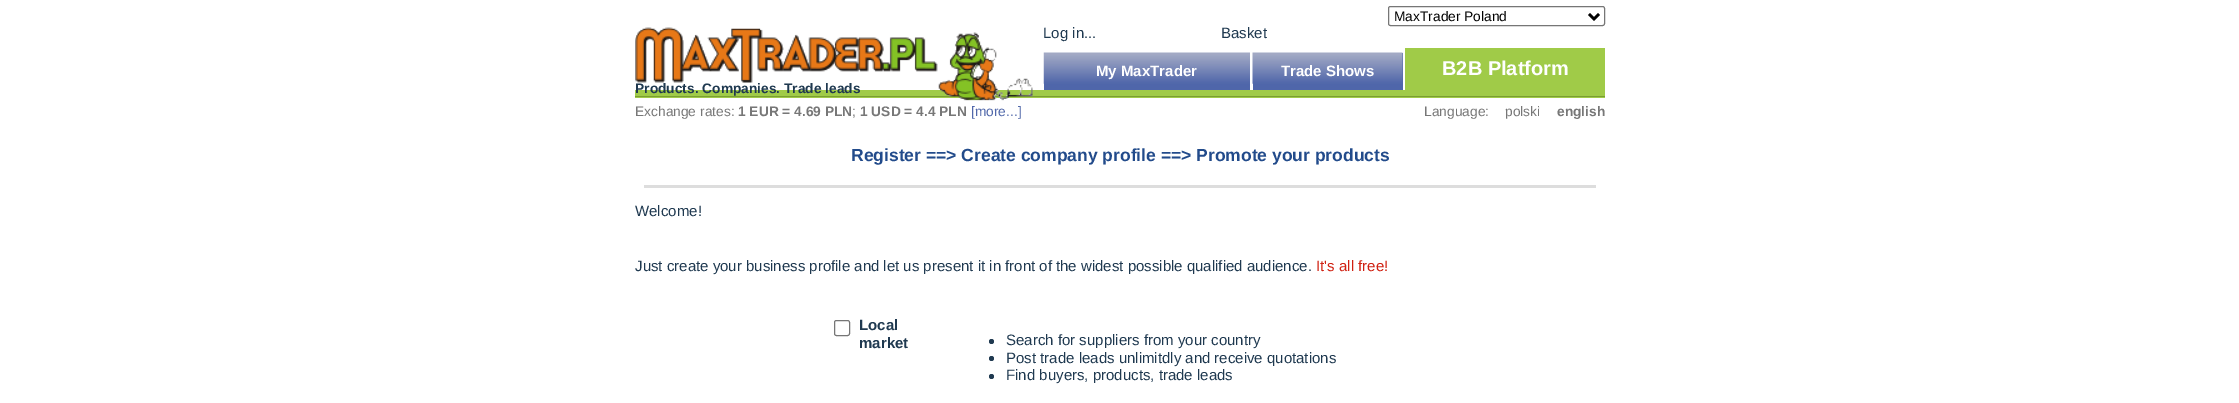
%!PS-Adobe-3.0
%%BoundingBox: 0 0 2239 403
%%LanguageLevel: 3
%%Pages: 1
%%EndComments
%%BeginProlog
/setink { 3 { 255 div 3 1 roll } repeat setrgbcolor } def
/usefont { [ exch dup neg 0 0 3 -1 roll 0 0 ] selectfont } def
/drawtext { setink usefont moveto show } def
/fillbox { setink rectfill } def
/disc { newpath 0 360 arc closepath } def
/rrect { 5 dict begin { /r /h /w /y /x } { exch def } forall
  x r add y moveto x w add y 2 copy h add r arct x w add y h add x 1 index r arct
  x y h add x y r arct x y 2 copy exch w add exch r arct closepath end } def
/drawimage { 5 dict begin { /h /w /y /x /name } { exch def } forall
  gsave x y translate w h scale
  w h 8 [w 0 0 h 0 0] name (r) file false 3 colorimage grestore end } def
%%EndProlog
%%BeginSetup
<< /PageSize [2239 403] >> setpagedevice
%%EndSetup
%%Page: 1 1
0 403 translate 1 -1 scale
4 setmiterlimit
0 0 2239 403 255 255 255 fillbox
635 90 970 8 160 203 72 fillbox
635 96 970 1 122 158 50 fillbox
(assets/img1.rgb) 635 27 398 74 drawimage
118 118 118 setink
1388.5 6.5 216 19 2 rrect stroke
0 0 0 setink
2.5 setlinewidth
1589 14 moveto 1594 19 lineto 1599 14 lineto stroke
(MaxTrader Poland) 1394 21 /LiberationSans-Regular 13.75 0 0 0 drawtext
(Log in...) 1043 38 /LiberationSans-Regular 15 31 57 80 drawtext
(Basket) 1221 38 /LiberationSans-Regular 15 31 57 80 drawtext
1044 83 206 7 79 102 170 fillbox
(assets/img2.rgb) 1043 52 207 32 drawimage
(My MaxTrader) 1096 76 /LiberationSans-Bold 15 255 255 255 drawtext
1253 53 150 37 79 102 170 fillbox
(assets/img3.rgb) 1252 52 151 32 drawimage
(Trade Shows) 1281 76 /LiberationSans-Bold 15 255 255 255 drawtext
1405 48 200 42 160 203 72 fillbox
(B2B Platform) 1442 75 /LiberationSans-Bold 20 255 255 255 drawtext
(Products. Companies. Trade leads) 635 93 /LiberationSans-Bold 13.75 31 57 80 drawtext
(Exchange rates:) 635 116 /LiberationSans-Regular 13.75 119 119 119 drawtext
(1 EUR = 4.69 PLN) 738 116 /LiberationSans-Bold 13.75 119 119 119 drawtext
(;) 852 116 /LiberationSans-Regular 13.75 119 119 119 drawtext
(1 USD = 4.4 PLN) 860 116 /LiberationSans-Bold 13.75 119 119 119 drawtext
([more...]) 971 116 /LiberationSans-Regular 13.75 81 104 170 drawtext
(Language:) 1424 116 /LiberationSans-Regular 13.75 119 119 119 drawtext
(polski) 1505 116 /LiberationSans-Regular 13.75 119 119 119 drawtext
(english) 1557 116 /LiberationSans-Bold 13.75 119 119 119 drawtext
(Register ==> Create company profile ==> Promote your products) 851 161 /LiberationSans-Bold 17.5 34 75 139 drawtext
644 185 952 3 221 221 221 fillbox
(Welcome!) 635 216 /LiberationSans-Regular 15 31 57 80 drawtext
(Just create your business profile and let us present it in front of the widest possible qualified audience.) 635 271 /LiberationSans-Regular 15 31 57 80 drawtext
(It's all free!) 1316 271 /LiberationSans-Regular 15 208 32 17 drawtext
118 118 118 setink
1 setlinewidth
834.5 320.5 15 15 2 rrect stroke
(Local) 859 330 /LiberationSans-Bold 15 31 57 80 drawtext
(market) 859 348 /LiberationSans-Bold 15 31 57 80 drawtext
991.5 341.5 2.5 disc fill
(Search for suppliers from your country) 1006 345 /LiberationSans-Regular 15 31 57 80 drawtext
991.5 358.5 2.5 disc fill
(Post trade leads unlimitdly and receive quotations) 1006 363 /LiberationSans-Regular 15 31 57 80 drawtext
991.5 376.5 2.5 disc fill
(Find buyers, products, trade leads) 1006 380 /LiberationSans-Regular 15 31 57 80 drawtext
showpage
%%EOF
